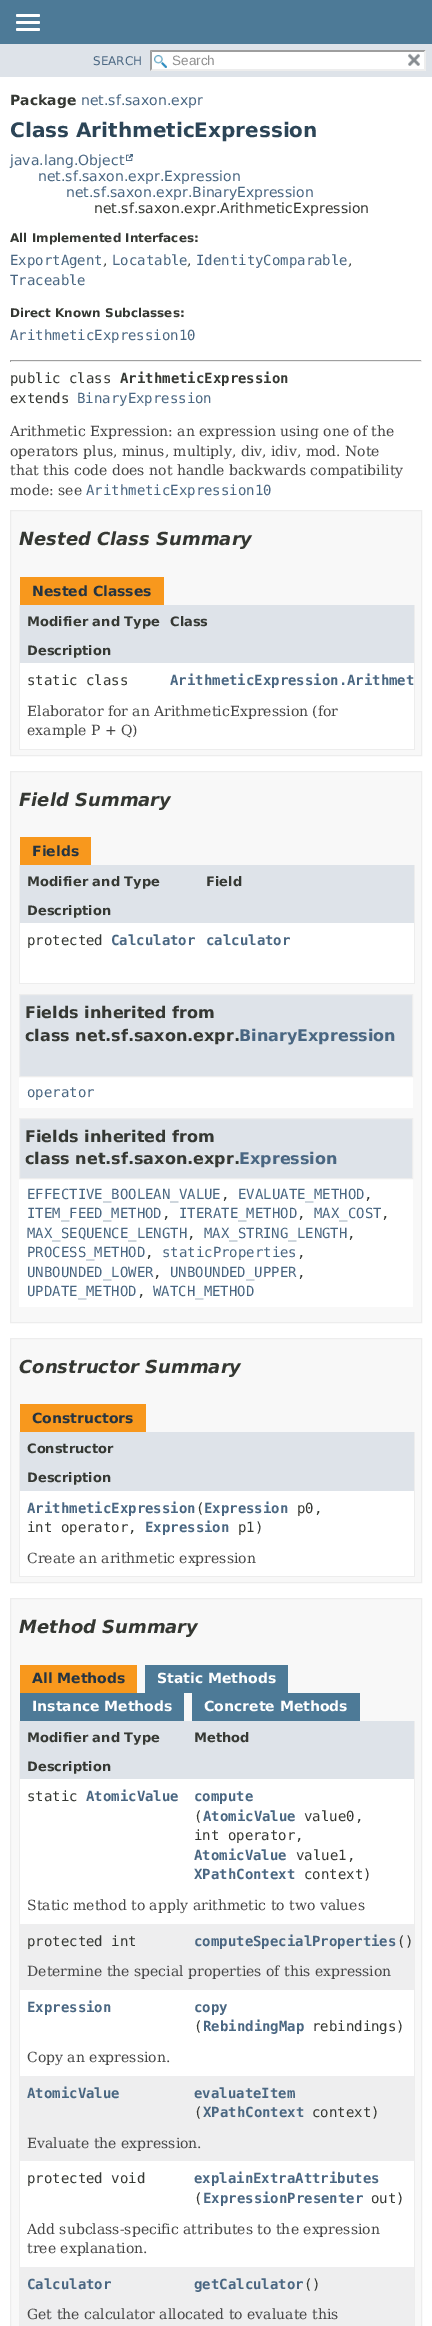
%!PS-Adobe-3.0
%%BoundingBox: 0 0 432 2326
%%LanguageLevel: 3
%%Pages: 1
%%EndComments
%%BeginProlog
/setink { 3 { 255 div 3 1 roll } repeat setrgbcolor } def
/usefont { [ exch dup neg 0 0 3 -1 roll 0 0 ] selectfont } def
/drawtext { setink usefont moveto show } def
/fillbox { setink rectfill } def
/rrect { 5 dict begin { /r /h /w /y /x } { exch def } forall
  x r add y moveto x w add y 2 copy h add r arct x w add y h add x 1 index r arct
  x y h add x y r arct x y 2 copy exch w add exch r arct closepath end } def
/drawimage { 5 dict begin { /h /w /y /x /name } { exch def } forall
  gsave x y translate w h scale
  w h 8 [w 0 0 h 0 0] name (r) file false 3 colorimage grestore end } def
%%EndProlog
%%BeginSetup
<< /PageSize [432 2326] >> setpagedevice
%%EndSetup
%%Page: 1 1
0 2326 translate 1 -1 scale
4 setmiterlimit
0 0 432 2326 255 255 255 fillbox
0 0 432 44 77 122 151 fillbox
255 255 255 setink
16 14 24 3 1.5 rrect fill
16 21 24 3 1.5 rrect fill
16 28 24 3 1.5 rrect fill
0 44 432 33 222 227 233 fillbox
(SEARCH) 93 65 /DejaVuSans-Regular 12 74 103 130 drawtext
150 50 276 21 255 255 255 fillbox
(assets/img1.rgb) 154 55 13 13 drawimage
158 158 158 setink
150 50 moveto 426 50 lineto 424 52 lineto 152 52 lineto closepath fill
237 237 237 setink
426 50 moveto 426 71 lineto 424 69 lineto 424 52 lineto closepath fill
426 71 moveto 150 71 lineto 152 69 lineto 424 69 lineto closepath fill
158 158 158 setink
150 71 moveto 150 50 lineto 152 52 lineto 152 69 lineto closepath fill
(Search) 172 65 /LiberationSans-Regular 13.5 144 144 144 drawtext
(assets/img2.rgb) 408 53 12 13 drawimage
(Package) 10 105 /DejaVuSans-Bold 14 53 56 51 drawtext
(net.sf.saxon.expr) 81 105 /DejaVuSans-Regular 14 74 103 130 drawtext
(Class ArithmeticExpression) 10 137 /DejaVuSans-Bold 20 44 69 87 drawtext
(java.lang.Object) 10 165 /DejaVuSans-Regular 14 74 103 130 drawtext
(assets/img3.rgb) 126 154 7 7 drawimage
(net.sf.saxon.expr.Expression) 38 181 /DejaVuSans-Regular 14 74 103 130 drawtext
(net.sf.saxon.expr.BinaryExpression) 66 197 /DejaVuSans-Regular 14 74 103 130 drawtext
(net.sf.saxon.expr.ArithmeticExpression) 94 213 /DejaVuSans-Regular 14 53 56 51 drawtext
(All Implemented Interfaces:) 10 242 /DejaVuSans-Bold 12 53 56 51 drawtext
(ExportAgent) 10 265 /DejaVuSansMono-Regular 14 74 103 130 drawtext
(,) 103 265 /DejaVuSerif-Regular 14 53 56 51 drawtext
(Locatable) 112 265 /DejaVuSansMono-Regular 14 74 103 130 drawtext
(,) 187 265 /DejaVuSerif-Regular 14 53 56 51 drawtext
(IdentityComparable) 196 265 /DejaVuSansMono-Regular 14 74 103 130 drawtext
(,) 348 265 /DejaVuSerif-Regular 14 53 56 51 drawtext
(Traceable) 10 285 /DejaVuSansMono-Regular 14 74 103 130 drawtext
(Direct Known Subclasses:) 10 317 /DejaVuSans-Bold 12 53 56 51 drawtext
(ArithmeticExpression10) 10 340 /DejaVuSansMono-Regular 14 74 103 130 drawtext
10 360 412 1 159 159 159 fillbox
421 360 1 2 238 238 238 fillbox
10 361 412 1 238 238 238 fillbox
10 360 1 2 159 159 159 fillbox
(public class) 10 383 /DejaVuSansMono-Regular 14 53 56 51 drawtext
(ArithmeticExpression) 120 383 /DejaVuSansMono-Bold 14 53 56 51 drawtext
(extends) 10 403 /DejaVuSansMono-Regular 14 53 56 51 drawtext
(BinaryExpression) 77 403 /DejaVuSansMono-Regular 14 74 103 130 drawtext
(Arithmetic Expression: an expression using one of the) 10 436 /DejaVuSerif-Regular 14 71 71 71 drawtext
(operators plus, minus, multiply, div, idiv, mod. Note) 10 456 /DejaVuSerif-Regular 14 71 71 71 drawtext
(that this code does not handle backwards compatibility) 10 475 /DejaVuSerif-Regular 14 71 71 71 drawtext
(mode: see) 10 495 /DejaVuSerif-Regular 14 71 71 71 drawtext
(ArithmeticExpression10) 86 495 /DejaVuSansMono-Regular 14 74 103 130 drawtext
248 248 248 setink
10.5 510.5 moveto 421.5 510.5 lineto 421.5 755.5 lineto 10.5 755.5 lineto closepath gsave fill grestore
237 237 237 setink
stroke
(Nested Class Summary) 19 545 /DejaVuSans-BoldItalic 18 53 56 51 drawtext
20 577 144 28 248 152 29 fillbox
(Nested Classes) 32 596 /DejaVuSans-Bold 14 37 52 65 drawtext
414 605 1 145 237 237 237 fillbox
19 749 396 1 237 237 237 fillbox
19 605 1 145 237 237 237 fillbox
20 605 394 58 222 227 233 fillbox
(Modifier and Type) 27 626 /DejaVuSans-Bold 13 53 56 51 drawtext
(Class) 170 626 /DejaVuSans-Bold 13 53 56 51 drawtext
(Description) 27 655 /DejaVuSans-Bold 13 53 56 51 drawtext
20 663 394 86 255 255 255 fillbox
(static class) 27 685 /DejaVuSansMono-Regular 14 53 56 51 drawtext
(ArithmeticExpression.Arithmet) 170 685 /DejaVuSansMono-Bold 14 74 103 130 drawtext
(Elaborator for an ArithmeticExpression \(for) 27 716 /DejaVuSerif-Regular 14 71 71 71 drawtext
(example P + Q\)) 27 735 /DejaVuSerif-Regular 14 71 71 71 drawtext
248 248 248 setink
10.5 771.5 moveto 421.5 771.5 lineto 421.5 1322.5 lineto 10.5 1322.5 lineto closepath gsave fill grestore
237 237 237 setink
stroke
(Field Summary) 19 806 /DejaVuSans-BoldItalic 18 53 56 51 drawtext
20 837 71 28 248 152 29 fillbox
(Fields) 32 856 /DejaVuSans-Bold 14 37 52 65 drawtext
414 865 1 119 237 237 237 fillbox
19 983 396 1 237 237 237 fillbox
19 865 1 119 237 237 237 fillbox
20 865 394 58 222 227 233 fillbox
(Modifier and Type) 27 886 /DejaVuSans-Bold 13 53 56 51 drawtext
(Field) 206 886 /DejaVuSans-Bold 13 53 56 51 drawtext
(Description) 27 915 /DejaVuSans-Bold 13 53 56 51 drawtext
20 923 394 60 255 255 255 fillbox
(protected) 27 945 /DejaVuSansMono-Regular 14 53 56 51 drawtext
(Calculator) 111 945 /DejaVuSansMono-Bold 14 74 103 130 drawtext
(calculator) 206 945 /DejaVuSansMono-Bold 14 74 103 130 drawtext
19 1077 394 31 255 255 255 fillbox
222 227 233 setink
19.5 994.5 moveto 412.5 994.5 lineto 412.5 1076.5 lineto 19.5 1076.5 lineto closepath gsave fill grestore
237 237 237 setink
stroke
(Fields inherited from) 25 1018 /DejaVuSans-Bold 16 53 56 51 drawtext
(class net.sf.saxon.expr.) 25 1041 /DejaVuSans-Bold 16 53 56 51 drawtext
(BinaryExpression) 239 1041 /DejaVuSans-Bold 16 74 103 130 drawtext
(operator) 27 1097 /DejaVuSansMono-Regular 14 74 103 130 drawtext
19 1179 394 128 255 255 255 fillbox
222 227 233 setink
19.5 1118.5 moveto 412.5 1118.5 lineto 412.5 1178.5 lineto 19.5 1178.5 lineto closepath gsave fill grestore
237 237 237 setink
stroke
(Fields inherited from) 25 1142 /DejaVuSans-Bold 16 53 56 51 drawtext
(class net.sf.saxon.expr.) 25 1164 /DejaVuSans-Bold 16 53 56 51 drawtext
(Expression) 239 1164 /DejaVuSans-Bold 16 74 103 130 drawtext
(EFFECTIVE_BOOLEAN_VALUE) 27 1199 /DejaVuSansMono-Regular 14 74 103 130 drawtext
(,) 221 1199 /DejaVuSansMono-Regular 14 53 56 51 drawtext
(EVALUATE_METHOD) 238 1199 /DejaVuSansMono-Regular 14 74 103 130 drawtext
(,) 364 1199 /DejaVuSansMono-Regular 14 53 56 51 drawtext
(ITEM_FEED_METHOD) 27 1218 /DejaVuSansMono-Regular 14 74 103 130 drawtext
(,) 162 1218 /DejaVuSansMono-Regular 14 53 56 51 drawtext
(ITERATE_METHOD) 179 1218 /DejaVuSansMono-Regular 14 74 103 130 drawtext
(,) 297 1218 /DejaVuSansMono-Regular 14 53 56 51 drawtext
(MAX_COST) 314 1218 /DejaVuSansMono-Regular 14 74 103 130 drawtext
(,) 381 1218 /DejaVuSansMono-Regular 14 53 56 51 drawtext
(MAX_SEQUENCE_LENGTH) 27 1238 /DejaVuSansMono-Regular 14 74 103 130 drawtext
(,) 187 1238 /DejaVuSansMono-Regular 14 53 56 51 drawtext
(MAX_STRING_LENGTH) 204 1238 /DejaVuSansMono-Regular 14 74 103 130 drawtext
(,) 347 1238 /DejaVuSansMono-Regular 14 53 56 51 drawtext
(PROCESS_METHOD) 27 1257 /DejaVuSansMono-Regular 14 74 103 130 drawtext
(,) 145 1257 /DejaVuSansMono-Regular 14 53 56 51 drawtext
(staticProperties) 162 1257 /DejaVuSansMono-Regular 14 74 103 130 drawtext
(,) 297 1257 /DejaVuSansMono-Regular 14 53 56 51 drawtext
(UNBOUNDED_LOWER) 27 1277 /DejaVuSansMono-Regular 14 74 103 130 drawtext
(,) 153 1277 /DejaVuSansMono-Regular 14 53 56 51 drawtext
(UNBOUNDED_UPPER) 170 1277 /DejaVuSansMono-Regular 14 74 103 130 drawtext
(,) 297 1277 /DejaVuSansMono-Regular 14 53 56 51 drawtext
(UPDATE_METHOD) 27 1296 /DejaVuSansMono-Regular 14 74 103 130 drawtext
(,) 137 1296 /DejaVuSansMono-Regular 14 53 56 51 drawtext
(WATCH_METHOD) 153 1296 /DejaVuSansMono-Regular 14 74 103 130 drawtext
248 248 248 setink
10.5 1338.5 moveto 421.5 1338.5 lineto 421.5 1582.5 lineto 10.5 1582.5 lineto closepath gsave fill grestore
237 237 237 setink
stroke
(Constructor Summary) 19 1373 /DejaVuSans-BoldItalic 18 53 56 51 drawtext
20 1404 126 28 248 152 29 fillbox
(Constructors) 32 1423 /DejaVuSans-Bold 14 37 52 65 drawtext
414 1432 1 145 237 237 237 fillbox
19 1576 396 1 237 237 237 fillbox
19 1432 1 145 237 237 237 fillbox
20 1432 394 59 222 227 233 fillbox
(Constructor) 27 1453 /DejaVuSans-Bold 13 53 56 51 drawtext
(Description) 27 1482 /DejaVuSans-Bold 13 53 56 51 drawtext
20 1491 394 85 255 255 255 fillbox
(ArithmeticExpression Expression) 27 1513 /DejaVuSansMono-Bold 14 74 103 130 drawtext
(\() 196 1513 /DejaVuSansMono-Regular 14 53 56 51 drawtext
(p0,) 297 1513 /DejaVuSansMono-Regular 14 53 56 51 drawtext
(int operator,) 27 1532 /DejaVuSansMono-Regular 14 53 56 51 drawtext
(Expression) 145 1532 /DejaVuSansMono-Bold 14 74 103 130 drawtext
(p1\)) 238 1532 /DejaVuSansMono-Regular 14 53 56 51 drawtext
(Create an arithmetic expression) 27 1563 /DejaVuSerif-Regular 14 71 71 71 drawtext
248 248 248 setink
10.5 1598.5 moveto 421.5 1598.5 lineto 421.5 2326.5 lineto 10.5 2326.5 lineto closepath gsave fill grestore
237 237 237 setink
stroke
(Method Summary) 19 1633 /DejaVuSans-BoldItalic 18 53 56 51 drawtext
20 1665 117 28 248 152 29 fillbox
(All Methods) 32 1683 /DejaVuSans-Bold 14 37 52 65 drawtext
145 1665 143 28 77 122 151 fillbox
(Static Methods) 157 1683 /DejaVuSans-Bold 14 255 255 255 drawtext
20 1693 164 28 77 122 151 fillbox
(Instance Methods) 32 1711 /DejaVuSans-Bold 14 255 255 255 drawtext
192 1693 168 28 77 122 151 fillbox
(Concrete Methods) 204 1711 /DejaVuSans-Bold 14 255 255 255 drawtext
414 1721 1 605 237 237 237 fillbox
19 1721 1 605 237 237 237 fillbox
20 1721 394 58 222 227 233 fillbox
(Modifier and Type) 27 1742 /DejaVuSans-Bold 13 53 56 51 drawtext
(Method) 194 1742 /DejaVuSans-Bold 13 53 56 51 drawtext
(Description) 27 1771 /DejaVuSans-Bold 13 53 56 51 drawtext
20 1779 394 145 255 255 255 fillbox
(static) 27 1801 /DejaVuSansMono-Regular 14 53 56 51 drawtext
(AtomicValue) 86 1801 /DejaVuSansMono-Bold 14 74 103 130 drawtext
(compute) 194 1801 /DejaVuSansMono-Bold 14 74 103 130 drawtext
(\() 194 1821 /DejaVuSansMono-Regular 14 53 56 51 drawtext
(AtomicValue) 203 1821 /DejaVuSansMono-Bold 14 74 103 130 drawtext
(value0,) 304 1821 /DejaVuSansMono-Regular 14 53 56 51 drawtext
(int operator,) 194 1840 /DejaVuSansMono-Regular 14 53 56 51 drawtext
(AtomicValue) 194 1860 /DejaVuSansMono-Bold 14 74 103 130 drawtext
(value1,) 296 1860 /DejaVuSansMono-Regular 14 53 56 51 drawtext
(XPathContext) 194 1879 /DejaVuSansMono-Bold 14 74 103 130 drawtext
(context\)) 304 1879 /DejaVuSansMono-Regular 14 53 56 51 drawtext
(Static method to apply arithmetic to two values) 27 1910 /DejaVuSerif-Regular 14 71 71 71 drawtext
20 1924 394 66 238 238 239 fillbox
(protected int) 27 1946 /DejaVuSansMono-Regular 14 53 56 51 drawtext
(computeSpecialProperties) 194 1946 /DejaVuSansMono-Bold 14 74 103 130 drawtext
(\(\)) 397 1946 /DejaVuSansMono-Regular 14 53 56 51 drawtext
(Determine the special properties of this expression) 27 1976 /DejaVuSerif-Regular 14 71 71 71 drawtext
20 1990 394 86 255 255 255 fillbox
(Expression) 27 2012 /DejaVuSansMono-Bold 14 74 103 130 drawtext
(copy) 194 2012 /DejaVuSansMono-Bold 14 74 103 130 drawtext
(\() 194 2031 /DejaVuSansMono-Regular 14 53 56 51 drawtext
(RebindingMap) 203 2031 /DejaVuSansMono-Bold 14 74 103 130 drawtext
(rebindings\)) 312 2031 /DejaVuSansMono-Regular 14 53 56 51 drawtext
(Copy an expression.) 27 2062 /DejaVuSerif-Regular 14 71 71 71 drawtext
20 2076 394 85 238 238 239 fillbox
(AtomicValue) 27 2098 /DejaVuSansMono-Bold 14 74 103 130 drawtext
(evaluateItem) 194 2098 /DejaVuSansMono-Bold 14 74 103 130 drawtext
(\() 194 2117 /DejaVuSansMono-Regular 14 53 56 51 drawtext
(XPathContext) 203 2117 /DejaVuSansMono-Bold 14 74 103 130 drawtext
(context\)) 312 2117 /DejaVuSansMono-Regular 14 53 56 51 drawtext
(Evaluate the expression.) 27 2148 /DejaVuSerif-Regular 14 71 71 71 drawtext
20 2161 394 106 255 255 255 fillbox
(protected void) 27 2183 /DejaVuSansMono-Regular 14 53 56 51 drawtext
(explainExtraAttributes) 194 2183 /DejaVuSansMono-Bold 14 74 103 130 drawtext
(\() 194 2203 /DejaVuSansMono-Regular 14 53 56 51 drawtext
(ExpressionPresenter) 203 2203 /DejaVuSansMono-Bold 14 74 103 130 drawtext
(out\)) 371 2203 /DejaVuSansMono-Regular 14 53 56 51 drawtext
(Add subclass-specific attributes to the expression) 27 2234 /DejaVuSerif-Regular 14 71 71 71 drawtext
(tree explanation.) 27 2253 /DejaVuSerif-Regular 14 71 71 71 drawtext
20 2267 394 59 238 238 239 fillbox
(Calculator) 27 2289 /DejaVuSansMono-Bold 14 74 103 130 drawtext
(getCalculator) 194 2289 /DejaVuSansMono-Bold 14 74 103 130 drawtext
(\(\)) 304 2289 /DejaVuSansMono-Regular 14 53 56 51 drawtext
(Get the calculator allocated to evaluate this) 27 2319 /DejaVuSerif-Regular 14 71 71 71 drawtext
showpage
%%EOF
